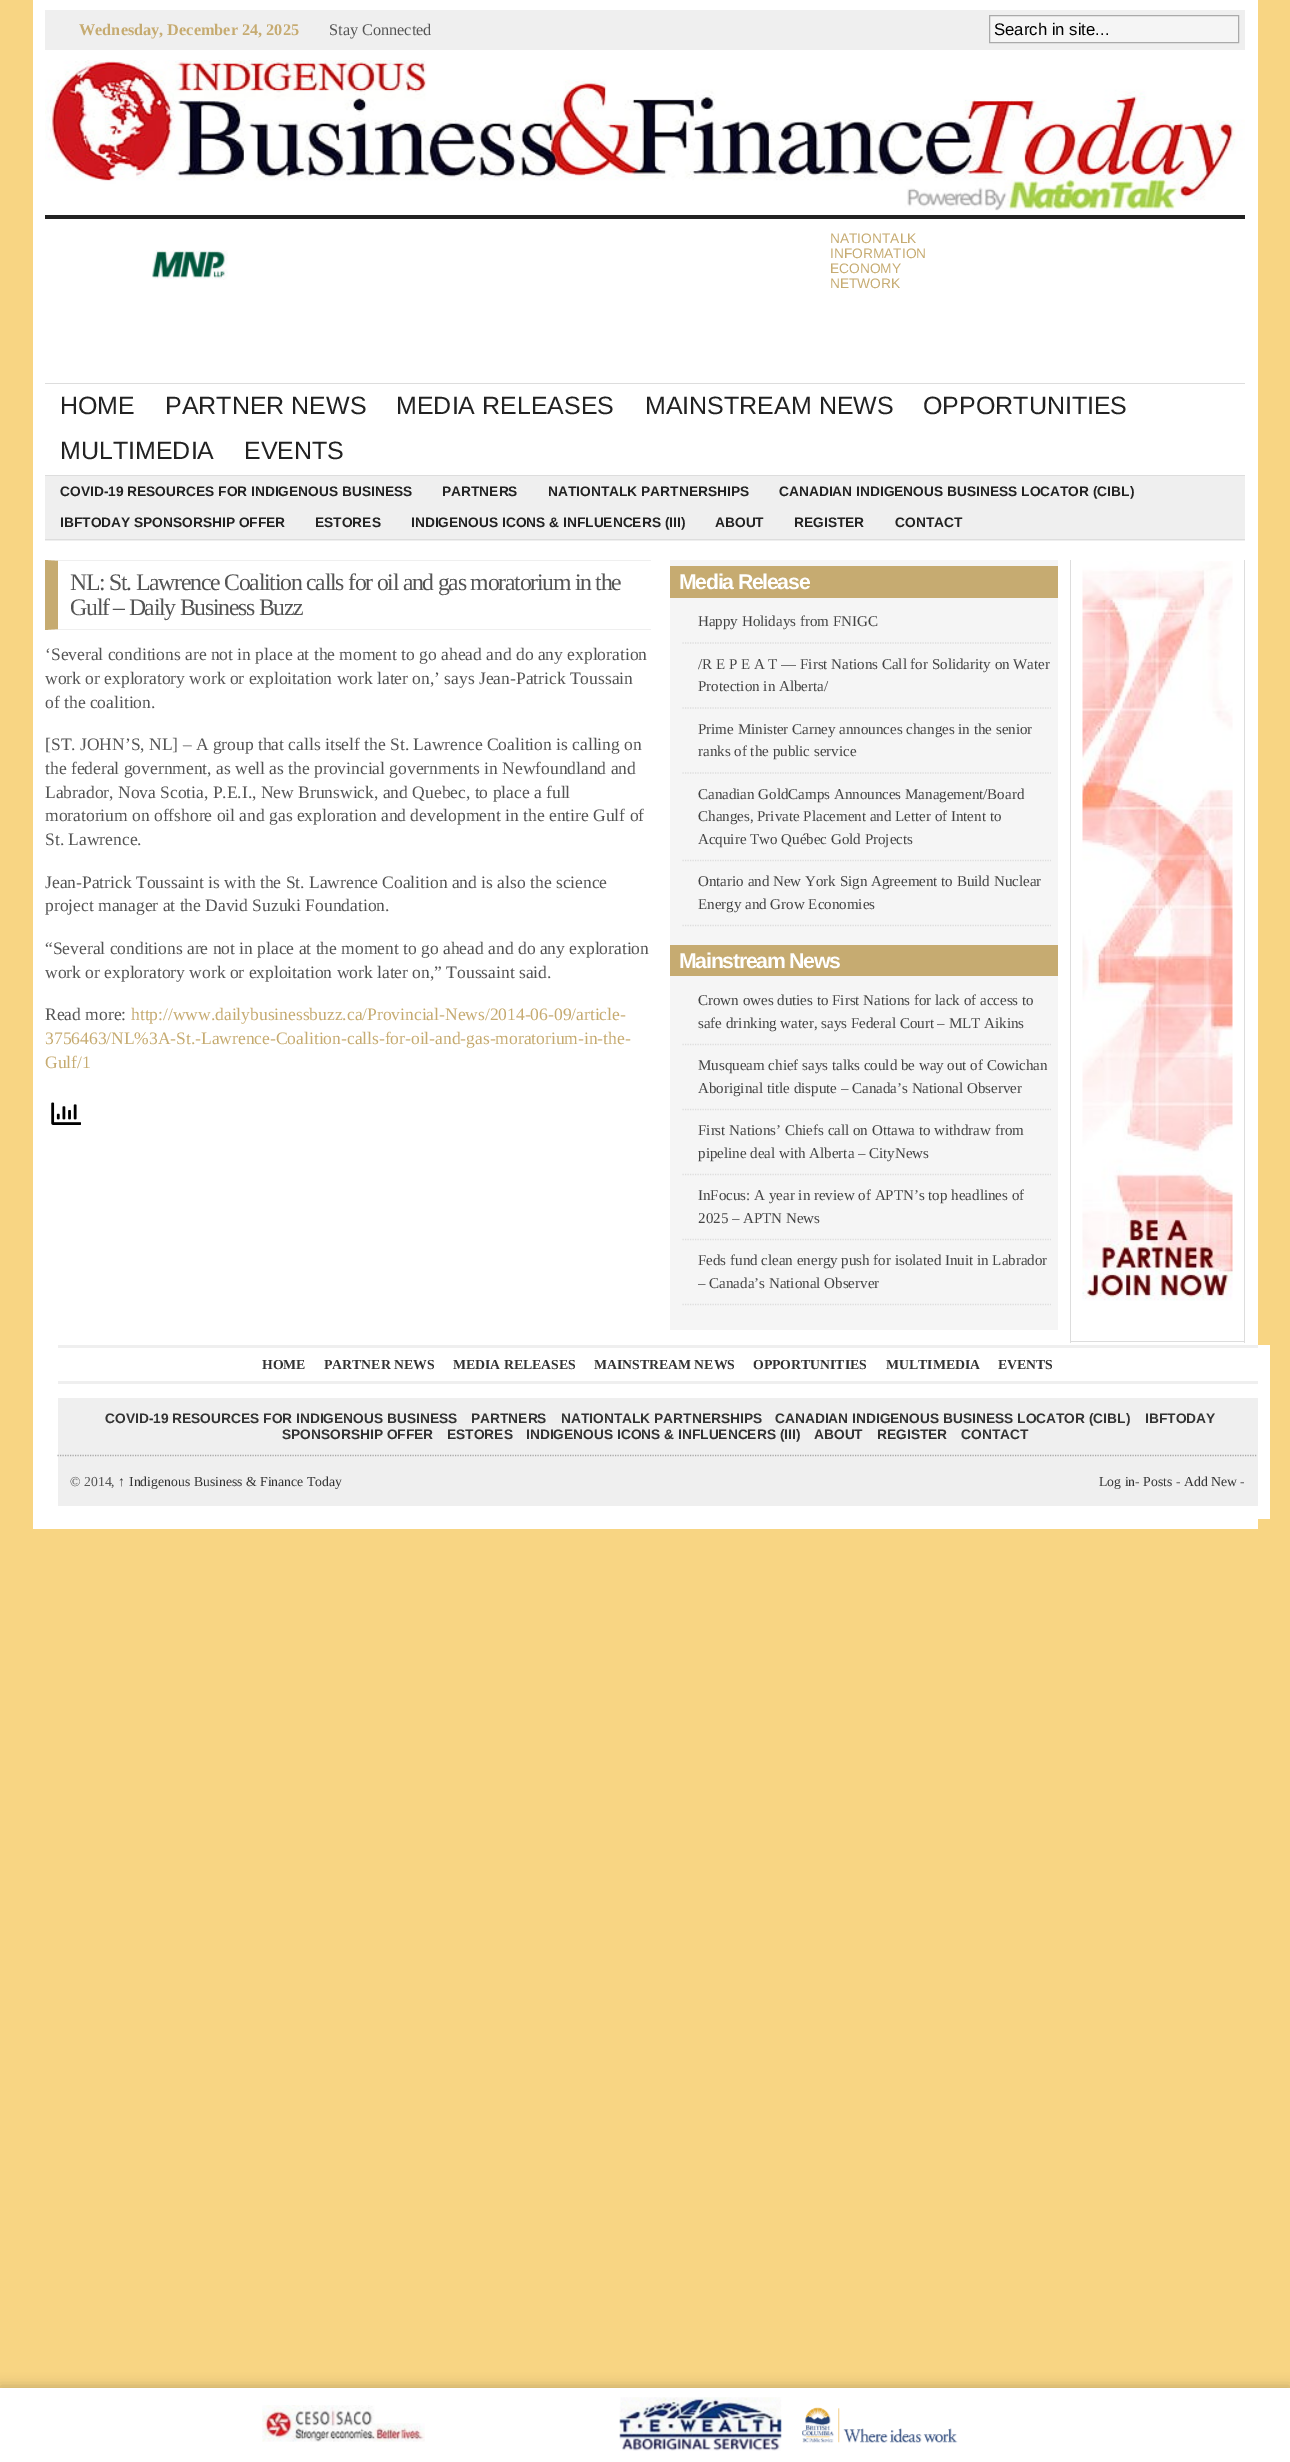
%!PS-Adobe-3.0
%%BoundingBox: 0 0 1290 2462
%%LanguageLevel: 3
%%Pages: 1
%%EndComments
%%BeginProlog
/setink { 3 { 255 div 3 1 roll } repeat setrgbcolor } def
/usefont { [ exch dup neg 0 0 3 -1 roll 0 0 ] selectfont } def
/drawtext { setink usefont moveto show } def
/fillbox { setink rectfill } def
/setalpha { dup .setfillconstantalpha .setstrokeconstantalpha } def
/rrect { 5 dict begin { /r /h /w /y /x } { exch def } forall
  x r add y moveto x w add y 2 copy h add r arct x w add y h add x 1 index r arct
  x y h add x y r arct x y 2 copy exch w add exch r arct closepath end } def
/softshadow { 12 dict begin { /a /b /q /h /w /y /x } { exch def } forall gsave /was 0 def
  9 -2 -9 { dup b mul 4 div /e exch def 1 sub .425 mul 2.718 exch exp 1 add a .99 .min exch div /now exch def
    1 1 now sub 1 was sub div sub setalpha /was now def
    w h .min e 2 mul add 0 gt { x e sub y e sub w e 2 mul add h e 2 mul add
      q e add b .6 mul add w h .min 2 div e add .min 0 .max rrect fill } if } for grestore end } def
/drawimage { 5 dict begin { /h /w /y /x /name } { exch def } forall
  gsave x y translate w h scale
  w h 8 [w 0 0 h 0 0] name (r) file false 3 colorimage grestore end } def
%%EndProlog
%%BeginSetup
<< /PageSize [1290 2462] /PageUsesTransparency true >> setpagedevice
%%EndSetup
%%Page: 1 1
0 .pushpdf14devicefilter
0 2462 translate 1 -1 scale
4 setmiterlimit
0 0 1290 2462 248 213 131 fillbox
33 0 1225 1529 255 255 255 fillbox
45 10 1200 40 239 239 239 fillbox
(Wednesday, December 24, 2025) 79 35 /LiberationSerif-Bold 16.25 198 171 113 drawtext
(Stay Connected) 329 35 /LiberationSerif-Regular 16.25 85 85 85 drawtext
245 245 245 setink
989.5 15.5 moveto 1238.5 15.5 lineto 1238.5 42.5 lineto 989.5 42.5 lineto closepath gsave fill grestore
170 170 170 setink
stroke
(Search in site...) 994 35 /LiberationSans-Regular 16.75 0 0 0 drawtext
45 215 1200 4 34 34 34 fillbox
(assets/img1.rgb) 45 60 1200 151 drawimage
45 383 1200 1 221 221 221 fillbox
(assets/img2.rgb) 152 250 76 30 drawimage
(NATIONTALK) 830 243 /LiberationSans-Regular 13.75 198 171 113 drawtext
(INFORMATION) 830 258 /LiberationSans-Regular 13.75 198 171 113 drawtext
(ECONOMY) 830 273 /LiberationSans-Regular 13.75 198 171 113 drawtext
(NETWORK) 830 288 /LiberationSans-Regular 13.75 198 171 113 drawtext
45 475 1200 1 221 221 221 fillbox
(HOME) 60 414 /LiberationSans-Regular 25 34 34 34 drawtext
(PARTNER NEWS) 165 414 /LiberationSans-Regular 25 34 34 34 drawtext
(MEDIA RELEASES) 396 414 /LiberationSans-Regular 25 34 34 34 drawtext
(MAINSTREAM NEWS) 645 414 /LiberationSans-Regular 25 34 34 34 drawtext
(OPPORTUNITIES) 923 414 /LiberationSans-Regular 25 34 34 34 drawtext
(MULTIMEDIA) 60 459 /LiberationSans-Regular 25 34 34 34 drawtext
(EVENTS) 244 459 /LiberationSans-Regular 25 34 34 34 drawtext
45 476 1200 65 239 239 239 fillbox
45 539 1200 1 221 221 221 fillbox
(COVID-19 RESOURCES FOR INDIGENOUS BUSINESS) 60 496 /LiberationSans-Bold 13.75 34 34 34 drawtext
(PARTNERS) 442 496 /LiberationSans-Bold 13.75 34 34 34 drawtext
(NATIONTALK PARTNERSHIPS) 548 496 /LiberationSans-Bold 13.75 34 34 34 drawtext
(CANADIAN INDIGENOUS BUSINESS LOCATOR \(CIBL\)) 779 496 /LiberationSans-Bold 13.75 34 34 34 drawtext
(IBFTODAY SPONSORSHIP OFFER) 60 527 /LiberationSans-Bold 13.75 34 34 34 drawtext
(ESTORES) 315 527 /LiberationSans-Bold 13.75 34 34 34 drawtext
(INDIGENOUS ICONS & INFLUENCERS \(III\)) 411 527 /LiberationSans-Bold 13.75 34 34 34 drawtext
(ABOUT) 715 527 /LiberationSans-Bold 13.75 34 34 34 drawtext
(REGISTER) 794 527 /LiberationSans-Bold 13.75 34 34 34 drawtext
(CONTACT) 895 527 /LiberationSans-Bold 13.75 34 34 34 drawtext
239 239 239 setink
45 560 moveto 651 560 lineto 651 561 lineto 58 561 lineto closepath fill
651 630 moveto 45 630 lineto 58 629 lineto 651 629 lineto closepath fill
198 171 113 setink
45 630 moveto 45 560 lineto 58 561 lineto 58 629 lineto closepath fill
/LiberationSerif-Regular 23.75 usefont
85 85 85 setink
70 590 moveto -1.25 0 (NL: St. Lawrence Coalition calls for oil and gas moratorium in the) ashow
70 615 moveto -1.25 0 (Gulf – Daily Business Buzz) ashow
(‘Several conditions are not in place at the moment to go ahead and do any exploration) 45 660 /LiberationSerif-Regular 17.5 85 85 85 drawtext
(work or exploratory work or exploitation work later on,’ says Jean-Patrick Toussain) 45 684 /LiberationSerif-Regular 17.5 85 85 85 drawtext
(of the coalition.) 45 708 /LiberationSerif-Regular 17.5 85 85 85 drawtext
([ST. JOHN’S, NL] – A group that calls itself the St. Lawrence Coalition is calling on) 45 750 /LiberationSerif-Regular 17.5 85 85 85 drawtext
(the federal government, as well as the provincial governments in Newfoundland and) 45 774 /LiberationSerif-Regular 17.5 85 85 85 drawtext
(Labrador, Nova Scotia, P.E.I., New Brunswick, and Quebec, to place a full) 45 798 /LiberationSerif-Regular 17.5 85 85 85 drawtext
(moratorium on offshore oil and gas exploration and development in the entire Gulf of) 45 821 /LiberationSerif-Regular 17.5 85 85 85 drawtext
(St. Lawrence.) 45 845 /LiberationSerif-Regular 17.5 85 85 85 drawtext
(Jean-Patrick Toussaint is with the St. Lawrence Coalition and is also the science) 45 888 /LiberationSerif-Regular 17.5 85 85 85 drawtext
(project manager at the David Suzuki Foundation.) 45 911 /LiberationSerif-Regular 17.5 85 85 85 drawtext
(“Several conditions are not in place at the moment to go ahead and do any exploration) 45 954 /LiberationSerif-Regular 17.5 85 85 85 drawtext
(work or exploratory work or exploitation work later on,” Toussaint said.) 45 978 /LiberationSerif-Regular 17.5 85 85 85 drawtext
(Read more:) 45 1020 /LiberationSerif-Regular 17.5 85 85 85 drawtext
(http://www.dailybusinessbuzz.ca/Provincial-News/2014-06-09/article-) 131 1020 /LiberationSerif-Regular 17.5 198 171 113 drawtext
(3756463/NL%3A-St.-Lawrence-Coalition-calls-for-oil-and-gas-moratorium-in-the-) 45 1044 /LiberationSerif-Regular 17.5 198 171 113 drawtext
(Gulf/1) 45 1068 /LiberationSerif-Regular 17.5 198 171 113 drawtext
(assets/img3.rgb) 51 1102 30 23 drawimage
670 560 388 770 245 245 245 fillbox
670 566 388 32 198 171 113 fillbox
/LiberationSans-Bold 21.25 usefont
255 255 255 setink
679 589 moveto -1.25 0 (Media Release) ashow
221 221 221 setink
1.2 setlinewidth
[1.25 1.25] 0 setdash
682.5 643 moveto 1051 643 lineto stroke
(Happy Holidays from FNIGC) 698 626 /LiberationSerif-Regular 15 68 68 68 drawtext
221 221 221 setink
682.5 708 moveto 1051 708 lineto stroke
(/R E P E A T — First Nations Call for Solidarity on Water) 698 669 /LiberationSerif-Regular 15 68 68 68 drawtext
(Protection in Alberta/) 698 691 /LiberationSerif-Regular 15 68 68 68 drawtext
221 221 221 setink
682.5 773 moveto 1051 773 lineto stroke
(Prime Minister Carney announces changes in the senior) 698 734 /LiberationSerif-Regular 15 68 68 68 drawtext
(ranks of the public service) 698 756 /LiberationSerif-Regular 15 68 68 68 drawtext
221 221 221 setink
682.5 860.5 moveto 1051 860.5 lineto stroke
(Canadian GoldCamps Announces Management/Board) 698 799 /LiberationSerif-Regular 15 68 68 68 drawtext
(Changes, Private Placement and Letter of Intent to) 698 821 /LiberationSerif-Regular 15 68 68 68 drawtext
(Acquire Two Québec Gold Projects) 698 844 /LiberationSerif-Regular 15 68 68 68 drawtext
221 221 221 setink
682.5 925.5 moveto 1051 925.5 lineto stroke
(Ontario and New York Sign Agreement to Build Nuclear) 698 886 /LiberationSerif-Regular 15 68 68 68 drawtext
(Energy and Grow Economies) 698 909 /LiberationSerif-Regular 15 68 68 68 drawtext
670 945 388 31 198 171 113 fillbox
/LiberationSans-Bold 21.25 usefont
255 255 255 setink
679 968 moveto -1.25 0 (Mainstream News) ashow
221 221 221 setink
682.5 1044.5 moveto 1051 1044.5 lineto stroke
(Crown owes duties to First Nations for lack of access to) 698 1005 /LiberationSerif-Regular 15 68 68 68 drawtext
(safe drinking water, says Federal Court – MLT Aikins) 698 1028 /LiberationSerif-Regular 15 68 68 68 drawtext
221 221 221 setink
682.5 1109.5 moveto 1051 1109.5 lineto stroke
(Musqueam chief says talks could be way out of Cowichan) 698 1070 /LiberationSerif-Regular 15 68 68 68 drawtext
(Aboriginal title dispute – Canada’s National Observer) 698 1093 /LiberationSerif-Regular 15 68 68 68 drawtext
221 221 221 setink
682.5 1174.5 moveto 1051 1174.5 lineto stroke
(First Nations’ Chiefs call on Ottawa to withdraw from) 698 1135 /LiberationSerif-Regular 15 68 68 68 drawtext
(pipeline deal with Alberta – CityNews) 698 1158 /LiberationSerif-Regular 15 68 68 68 drawtext
221 221 221 setink
682.5 1239.5 moveto 1051 1239.5 lineto stroke
(InFocus: A year in review of APTN’s top headlines of) 698 1200 /LiberationSerif-Regular 15 68 68 68 drawtext
(2025 – APTN News) 698 1223 /LiberationSerif-Regular 15 68 68 68 drawtext
221 221 221 setink
682.5 1304.5 moveto 1051 1304.5 lineto stroke
(Feds fund clean energy push for isolated Inuit in Labrador) 698 1265 /LiberationSerif-Regular 15 68 68 68 drawtext
(– Canada’s National Observer) 698 1288 /LiberationSerif-Regular 15 68 68 68 drawtext
1244 560 1 783 221 221 221 fillbox
1070 1341 175 1 221 221 221 fillbox
1070 560 1 783 221 221 221 fillbox
(assets/img4.rgb) 1082 561 151 740 drawimage
1258 1345 12 174 255 255 255 fillbox
58 1345 1200 3 239 239 239 fillbox
58 1381 1200 3 239 239 239 fillbox
(HOME) 262 1369 /LiberationSerif-Bold 13.75 51 51 51 drawtext
(PARTNER NEWS) 324 1369 /LiberationSerif-Bold 13.75 51 51 51 drawtext
(MEDIA RELEASES) 453 1369 /LiberationSerif-Bold 13.75 51 51 51 drawtext
(MAINSTREAM NEWS) 594 1369 /LiberationSerif-Bold 13.75 51 51 51 drawtext
(OPPORTUNITIES) 753 1369 /LiberationSerif-Bold 13.75 51 51 51 drawtext
(MULTIMEDIA) 886 1369 /LiberationSerif-Bold 13.75 51 51 51 drawtext
(EVENTS) 998 1369 /LiberationSerif-Bold 13.75 51 51 51 drawtext
58 1398 1200 108 239 239 239 fillbox
(COVID-19 RESOURCES FOR INDIGENOUS BUSINESS) 105 1423 /LiberationSans-Bold 13.75 51 51 51 drawtext
(PARTNERS) 471 1423 /LiberationSans-Bold 13.75 51 51 51 drawtext
(NATIONTALK PARTNERSHIPS) 561 1423 /LiberationSans-Bold 13.75 51 51 51 drawtext
(CANADIAN INDIGENOUS BUSINESS LOCATOR \(CIBL\)) 775 1423 /LiberationSans-Bold 13.75 51 51 51 drawtext
(IBFTODAY) 1145 1423 /LiberationSans-Bold 13.75 51 51 51 drawtext
(SPONSORSHIP OFFER) 282 1439 /LiberationSans-Bold 13.75 51 51 51 drawtext
(ESTORES) 447 1439 /LiberationSans-Bold 13.75 51 51 51 drawtext
(INDIGENOUS ICONS & INFLUENCERS \(III\)) 526 1439 /LiberationSans-Bold 13.75 51 51 51 drawtext
(ABOUT) 814 1439 /LiberationSans-Bold 13.75 51 51 51 drawtext
(REGISTER) 877 1439 /LiberationSans-Bold 13.75 51 51 51 drawtext
(CONTACT) 961 1439 /LiberationSans-Bold 13.75 51 51 51 drawtext
170 170 170 setink
57.5 1455.5 moveto 1257.5 1455.5 lineto stroke
(© 2014,) 70 1486 /LiberationSerif-Regular 13.75 85 85 85 drawtext
(↑) 118 1486 /LiberationSerif-Bold 13.75 51 51 51 drawtext
(Indigenous Business & Finance Today) 129 1486 /LiberationSerif-Regular 13.75 51 51 51 drawtext
(Log in) 1099 1486 /LiberationSerif-Regular 13.75 51 51 51 drawtext
(-) 1135 1486 /LiberationSerif-Regular 13.75 85 85 85 drawtext
(Posts) 1143 1486 /LiberationSerif-Regular 13.75 51 51 51 drawtext
(-) 1176 1486 /LiberationSerif-Regular 13.75 85 85 85 drawtext
(Add New) 1184 1486 /LiberationSerif-Regular 13.75 51 51 51 drawtext
(-) 1240 1486 /LiberationSerif-Regular 13.75 85 85 85 drawtext
0 0 0 setink
0 2386 1290 75 0 6 0.2 softshadow
0 2388 1290 74 255 255 255 fillbox
(assets/img5.rgb) 262 2405 163 37 drawimage
(assets/img6.rgb) 619 2397 163 54 drawimage
(assets/img7.rgb) 802 2407 156 36 drawimage
.poppdf14devicefilter showpage
%%EOF
